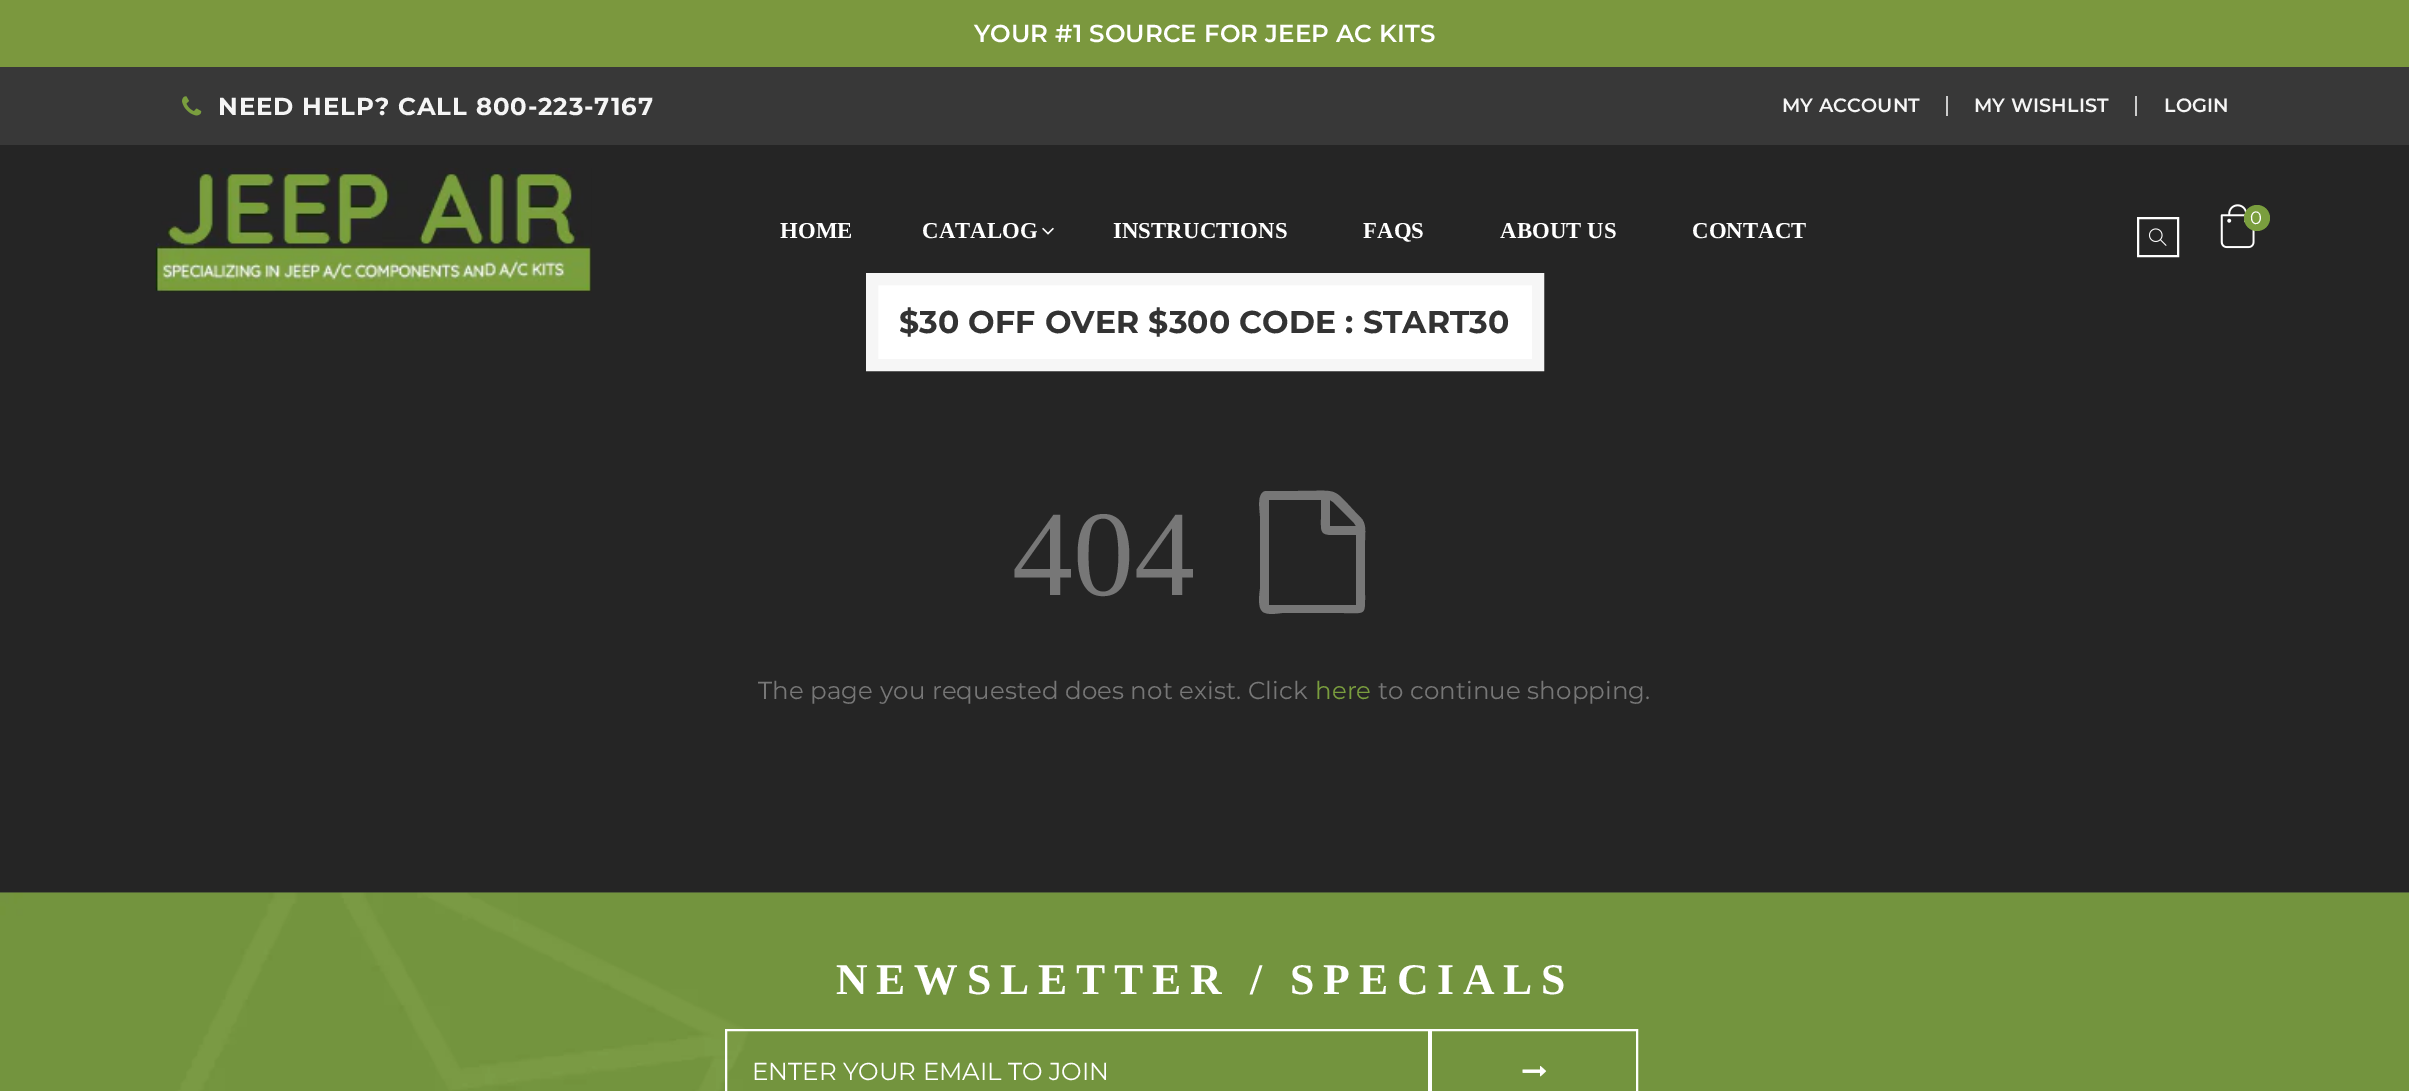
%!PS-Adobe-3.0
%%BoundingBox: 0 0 2409 1091
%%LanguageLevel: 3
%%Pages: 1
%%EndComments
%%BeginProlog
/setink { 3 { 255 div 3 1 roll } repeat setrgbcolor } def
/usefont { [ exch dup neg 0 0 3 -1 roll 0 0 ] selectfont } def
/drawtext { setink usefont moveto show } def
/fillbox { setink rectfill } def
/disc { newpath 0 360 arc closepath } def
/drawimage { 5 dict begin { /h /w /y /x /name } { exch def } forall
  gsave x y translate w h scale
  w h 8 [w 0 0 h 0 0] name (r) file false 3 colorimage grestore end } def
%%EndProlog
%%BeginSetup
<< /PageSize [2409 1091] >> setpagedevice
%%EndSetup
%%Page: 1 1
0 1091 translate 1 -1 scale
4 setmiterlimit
0 0 2409 1091 123 152 62 fillbox
/Montserrat-SemiBold 24.5 usefont
255 255 255 setink
974 42 moveto 0.1 0 (YOUR #1 SOURCE FOR JEEP AC KITS) ashow
0 67 2409 78 56 56 56 fillbox
(assets/img1.rgb) 182 96 20 20 drawimage
/Montserrat-Bold 24.5 usefont
245 245 245 setink
218 115 moveto 0.9 0 (NEED HELP? CALL 800-223-7167) ashow
/Montserrat-SemiBold 19.25 usefont
1782 112 moveto 0.1 0 (MY ACCOUNT) ashow
1946 96 2 20 204 204 204 fillbox
245 245 245 setink
1974 112 moveto 0.1 0 (MY WISHLIST) ashow
2135 96 2 20 204 204 204 fillbox
245 245 245 setink
2164 112 moveto 0.1 0 (LOGIN) ashow
0 145 2409 748 37 37 37 fillbox
(assets/img2.rgb) 155 168 437 125 drawimage
255 255 255 setink
2 setlinewidth
2138 218 40 38 rectstroke
(assets/img3.rgb) 2149 228 18 18 drawimage
(assets/img4.rgb) 2220 204 35 45 drawimage
122 158 62 setink
2257 218 13 disc fill
/Montserrat-Regular 18 usefont
255 255 255 setink
2250 224 moveto 0.1 0 (0) ashow
/LiberationSerif-Bold 22.75 usefont
780 238 moveto 0.1 0 (HOME) ashow
922 238 moveto 0.1 0 (CATALOG) ashow
(assets/img5.rgb) 1042 227 12 8 drawimage
1113 238 moveto 0.1 0 (INSTRUCTIONS) ashow
1363 238 moveto 0.1 0 (FAQS) ashow
1500 238 moveto 0.1 0 (ABOUT US) ashow
1692 238 moveto 0.1 0 (CONTACT) ashow
872 279 moveto 1538 279 lineto 1538 365 lineto 872 365 lineto closepath gsave fill grestore
246 246 246 setink
12 setlinewidth
stroke
/Montserrat-Bold 31.5 usefont
51 51 51 setink
899 333 moveto 0.1 0 ($30 OFF OVER $300 CODE : START30) ashow
/LiberationSerif-Regular 122 usefont
119 119 119 setink
1012 595 moveto 0.1 0 (404) ashow
1360 517 moveto 1367 523 1365 533 1365 541 curveto 1365 594 lineto 1365 616 1366 613 1343 613 curveto 1282 613 lineto 1280 613 1266 616 1262 611 curveto 1257 606 1260 590 1260 589 curveto 1260 516 lineto 1260 512 1256 492 1266 491 curveto 1297 491 lineto 1342 491 1330 486 1360 517 curveto closepath 1330 500 moveto 1330 526 lineto 1356 526 lineto 1354 523 lineto 1333 502 lineto closepath 1356 605 moveto 1356 535 lineto 1333 535 lineto 1320 535 1321 531 1321 519 curveto 1321 500 lineto 1269 500 lineto 1269 605 lineto closepath fill
/Montserrat-Regular 24.5 usefont
758 699 moveto 0.1 0 (The page you requested does not exist. Click) ashow
122 158 62 setink
1315 699 moveto 0.1 0 (here) ashow
119 119 119 setink
1378 699 moveto 0.1 0 (to continue shopping.) ashow
(assets/img6.rgb) 0 892 2409 1 drawimage
(assets/img7.rgb) 0 892 2409 199 drawimage
/LiberationSerif-Bold 43.75 usefont
255 255 255 setink
836 994 moveto 8.75 0 (NEWSLETTER / SPECIALS) ashow
2 setlinewidth
726 1030 911 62 rectstroke
(ENTER YOUR EMAIL TO JOIN) 752 1080 /Montserrat-Regular 24.5 255 255 255 drawtext
1428 1029 4 62 255 255 255 fillbox
(assets/img8.rgb) 1522 1065 25 12 drawimage
showpage
%%EOF
